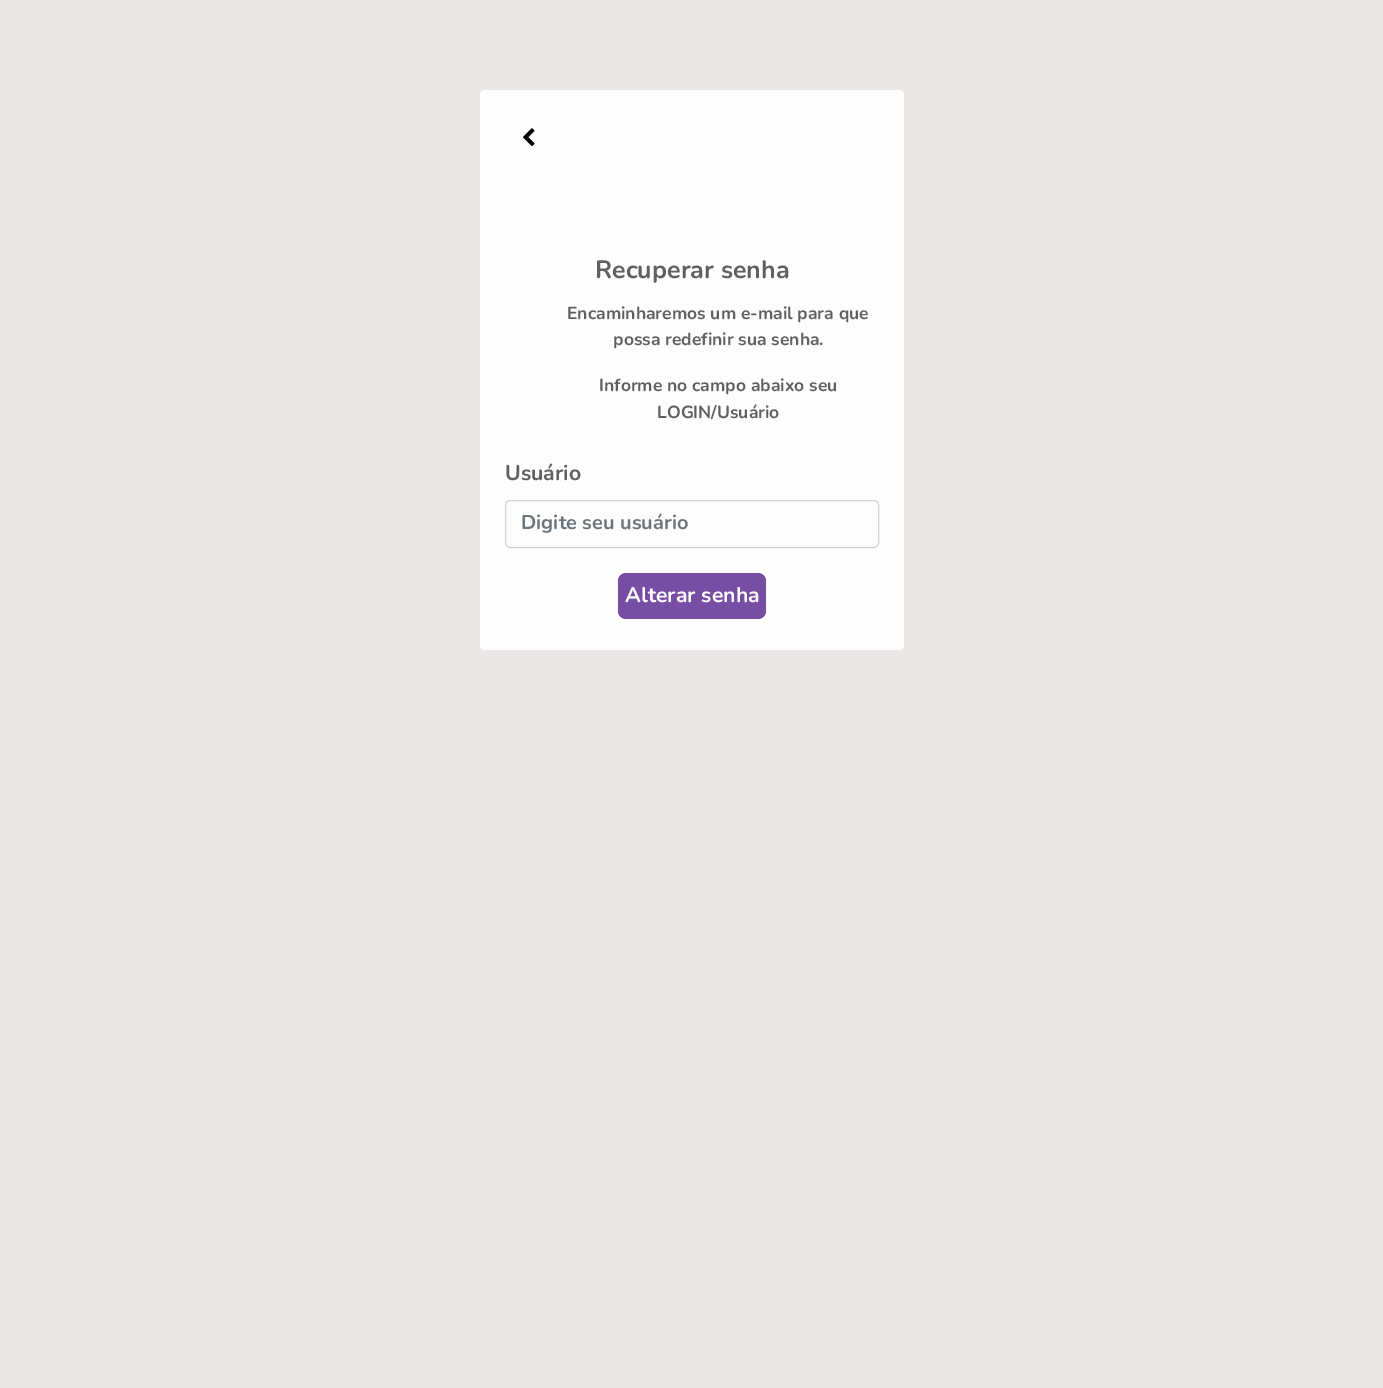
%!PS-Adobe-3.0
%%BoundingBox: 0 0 1383 1388
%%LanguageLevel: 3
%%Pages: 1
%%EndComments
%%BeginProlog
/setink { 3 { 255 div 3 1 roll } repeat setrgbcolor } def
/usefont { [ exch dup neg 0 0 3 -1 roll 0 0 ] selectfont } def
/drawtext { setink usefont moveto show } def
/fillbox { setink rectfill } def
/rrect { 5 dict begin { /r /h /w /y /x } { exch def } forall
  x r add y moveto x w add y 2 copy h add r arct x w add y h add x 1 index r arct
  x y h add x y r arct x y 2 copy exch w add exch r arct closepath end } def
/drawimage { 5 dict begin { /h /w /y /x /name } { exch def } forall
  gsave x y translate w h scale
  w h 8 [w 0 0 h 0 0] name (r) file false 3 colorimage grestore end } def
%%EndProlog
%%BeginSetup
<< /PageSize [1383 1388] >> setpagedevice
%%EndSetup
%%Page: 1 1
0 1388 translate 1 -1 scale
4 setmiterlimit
0 0 1383 1388 235 231 231 fillbox
253 253 253 setink
480 90 424 560 5 rrect fill
(assets/img1.rgb) 523 128 12 19 drawimage
(Recuperar senha) 595 278 /Nunito-ExtraLight 25 100 95 95 drawtext
(Encaminharemos um e-mail para que) 567 319 /Nunito-ExtraLight 17.5 100 95 95 drawtext
(possa redefinir sua senha.) 613 345 /Nunito-ExtraLight 17.5 100 95 95 drawtext
(Informe no campo abaixo seu) 599 391 /Nunito-ExtraLight 17.5 100 95 95 drawtext
(LOGIN/Usuário) 657 418 /Nunito-ExtraLight 17.5 100 95 95 drawtext
(Usuário) 505 480 /Nunito-ExtraLight 21.25 100 95 95 drawtext
206 212 218 setink
505.5 500.5 373 47 4.5 rrect stroke
(Digite seu usuário) 521 529 /Nunito-ExtraLight 20 108 117 125 drawtext
120 78 164 setink
618 573 148 46 8 rrect fill
(Alterar senha) 625 602 /Nunito-ExtraLight 21.25 255 255 255 drawtext
showpage
%%EOF
